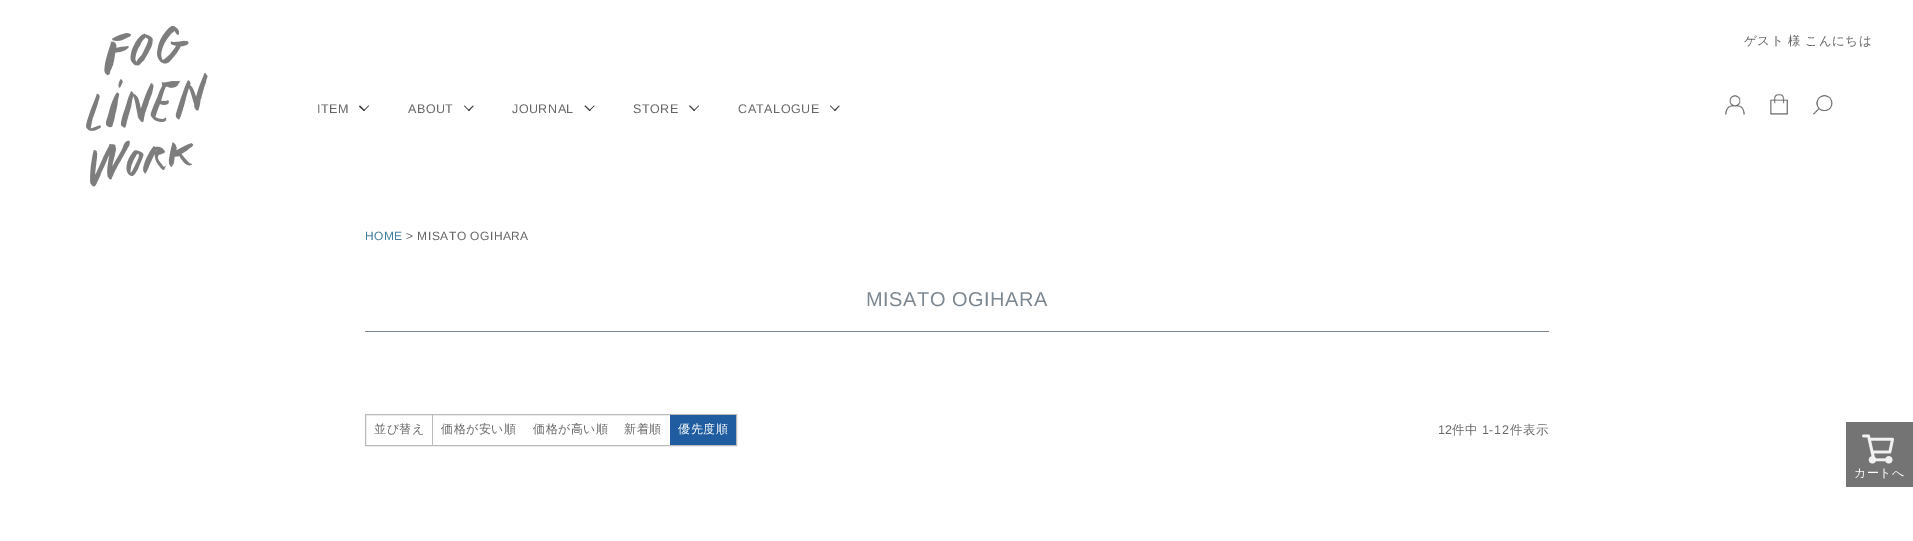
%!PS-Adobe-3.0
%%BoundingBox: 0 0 1913 541
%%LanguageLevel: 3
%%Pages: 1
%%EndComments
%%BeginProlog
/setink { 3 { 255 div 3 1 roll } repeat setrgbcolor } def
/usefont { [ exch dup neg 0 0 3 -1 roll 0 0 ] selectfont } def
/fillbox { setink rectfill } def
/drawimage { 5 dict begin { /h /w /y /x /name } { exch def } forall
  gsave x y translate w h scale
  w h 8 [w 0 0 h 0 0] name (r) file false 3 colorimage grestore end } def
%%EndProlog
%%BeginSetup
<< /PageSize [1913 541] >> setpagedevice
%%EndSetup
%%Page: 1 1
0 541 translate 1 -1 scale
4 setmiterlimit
0 0 1913 541 255 255 255 fillbox
/WenQuanYiZenHei-Medium 12.5 usefont
102 102 102 setink
1744 45 moveto 0.5 0 (ゲスト 様 こんにちは) ashow
(assets/img1.rgb) 86 25 122 162 drawimage
/LiberationSans-Regular 12.5 usefont
317 113 moveto 0.5 0 (ITEM) ashow
51 51 51 setink
368.5 105.5 moveto 369 106 lineto 364 111 lineto 363.5 110.5 lineto closepath fill
360 105.5 moveto 365 110.5 lineto 364 111 lineto 359 106.5 lineto closepath fill
102 102 102 setink
408 113 moveto 0.5 0 (ABOUT) ashow
51 51 51 setink
473 105.5 moveto 473.5 106 lineto 469 111 lineto 468 110.5 lineto closepath fill
464.5 105.5 moveto 469.5 110.5 lineto 469 111 lineto 464 106 lineto closepath fill
102 102 102 setink
512 113 moveto 0.5 0 (JOURNAL) ashow
51 51 51 setink
594 105.5 moveto 594.5 106 lineto 589.5 111 lineto 589 110.5 lineto closepath fill
585.5 105.5 moveto 590.5 110.5 lineto 589.5 111 lineto 584.5 106 lineto closepath fill
102 102 102 setink
633 113 moveto 0.5 0 (STORE) ashow
51 51 51 setink
698.5 105.5 moveto 699 106 lineto 694 111 lineto 693.5 110.5 lineto closepath fill
690 105.5 moveto 695 110.5 lineto 694 111 lineto 689 106 lineto closepath fill
102 102 102 setink
738 113 moveto 0.5 0 (CATALOGUE) ashow
51 51 51 setink
839 105.5 moveto 839.5 106 lineto 835 111 lineto 834 110.5 lineto closepath fill
830.5 105.5 moveto 835.5 110.5 lineto 835 111 lineto 830 106 lineto closepath fill
(assets/img2.rgb) 1725 95 20 20 drawimage
(assets/img3.rgb) 1770 93 18 22 drawimage
(assets/img4.rgb) 1813 94 20 21 drawimage
/LiberationSans-Regular 12 usefont
67 127 157 setink
365 240 moveto 0.5 0 (HOME) ashow
102 102 102 setink
406 240 moveto 0.5 0 (> MISATO OGIHARA) ashow
365 331 1184 1 124 135 144 fillbox
/LiberationSans-Regular 20 usefont
866 306 moveto 0.5 0 (MISATO OGIHARA) ashow
187 187 187 setink
365.5 414.5 371 31 rectstroke
/WenQuanYiZenHei-Medium 12 usefont
102 102 102 setink
374 433 moveto 0.5 0 (並び替え) ashow
432 415 1 30 187 187 187 fillbox
102 102 102 setink
441 433 moveto 0.5 0 (価格が安い順) ashow
533 433 moveto 0.5 0 (価格が高い順) ashow
624 433 moveto 0.5 0 (新着順) ashow
670 415 66 30 31 93 160 fillbox
255 255 255 setink
678 433 moveto 0.5 0 (優先度順) ashow
/LiberationSans-Regular 12.5 usefont
102 102 102 setink
1438 434 moveto 0.5 0 (12) ashow
/WenQuanYiZenHei-Medium 12.5 usefont
1452 434 moveto 0.5 0 (件中) ashow
/LiberationSans-Regular 12.5 usefont
1482 434 moveto 0.5 0 (1-12) ashow
/WenQuanYiZenHei-Medium 12.5 usefont
1510 434 moveto 0.5 0 (件表示) ashow
1846 422 67 65 116 116 116 fillbox
(assets/img5.rgb) 1862 434 32 30 drawimage
/WenQuanYiZenHei-Medium 12 usefont
255 255 255 setink
1854 477 moveto 0.5 0 (カートへ) ashow
showpage
%%EOF
